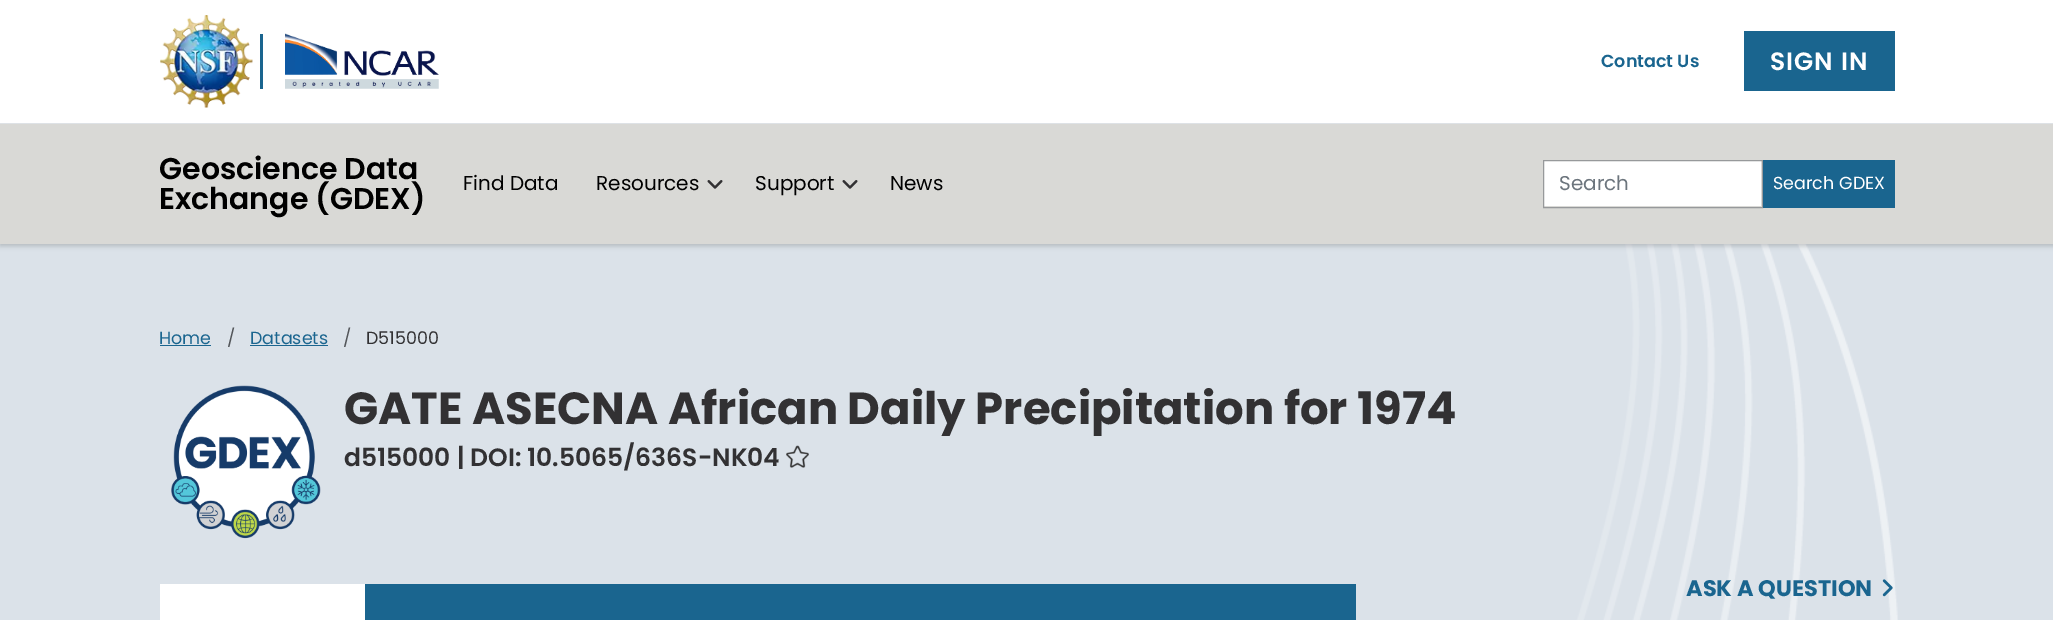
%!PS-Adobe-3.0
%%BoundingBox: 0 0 2053 620
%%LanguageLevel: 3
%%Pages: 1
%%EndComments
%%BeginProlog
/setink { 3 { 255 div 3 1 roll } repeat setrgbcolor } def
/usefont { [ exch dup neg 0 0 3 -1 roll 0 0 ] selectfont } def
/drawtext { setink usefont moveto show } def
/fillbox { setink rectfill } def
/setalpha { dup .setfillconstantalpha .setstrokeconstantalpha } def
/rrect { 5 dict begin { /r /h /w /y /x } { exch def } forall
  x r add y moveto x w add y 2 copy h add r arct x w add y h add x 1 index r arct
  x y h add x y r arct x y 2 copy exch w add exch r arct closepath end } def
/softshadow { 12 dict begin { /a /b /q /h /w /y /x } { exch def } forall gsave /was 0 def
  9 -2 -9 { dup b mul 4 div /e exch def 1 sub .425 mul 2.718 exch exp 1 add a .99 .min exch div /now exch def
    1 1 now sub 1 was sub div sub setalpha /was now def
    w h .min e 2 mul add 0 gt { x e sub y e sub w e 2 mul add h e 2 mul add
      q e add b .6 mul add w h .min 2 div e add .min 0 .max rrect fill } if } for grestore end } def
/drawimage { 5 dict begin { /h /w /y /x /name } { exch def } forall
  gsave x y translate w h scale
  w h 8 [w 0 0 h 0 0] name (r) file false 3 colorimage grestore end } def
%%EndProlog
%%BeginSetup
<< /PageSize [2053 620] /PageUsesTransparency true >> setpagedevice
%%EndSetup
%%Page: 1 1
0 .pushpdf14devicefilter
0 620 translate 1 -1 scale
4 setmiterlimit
0 0 2053 620 219 226 233 fillbox
(assets/img1.rgb) 1576 244 322 376 drawimage
0 0 0 setink
0 3 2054 243 0 2.5 0.18 softshadow
0 0 2053 123 255 255 255 fillbox
(assets/img2.rgb) 160 15 93 93 drawimage
260 34 3 55 26 101 143 fillbox
(assets/img3.rgb) 285 33 154 56 drawimage
(Contact Us) 1601 67 /Poppins-SemiBold 17.5 26 101 143 drawtext
1744 31 151 60 26 101 143 fillbox
/Poppins-SemiBold 25 usefont
255 255 255 setink
1770 70 moveto 1 0 (SIGN IN) ashow
0 124 2053 120 217 217 214 fillbox
0 123 2053 1 222 226 230 fillbox
(Geoscience Data) 159 179 /Poppins-SemiBold 30 0 0 0 drawtext
(Exchange \(GDEX\)) 159 209 /Poppins-SemiBold 30 0 0 0 drawtext
(Find Data) 463 190 /Poppins-Regular 20 0 0 0 drawtext
(Resources) 596 190 /Poppins-Regular 20 0 0 0 drawtext
(assets/img4.rgb) 707 180 16 9 drawimage
(Support) 755 190 /Poppins-Regular 20 0 0 0 drawtext
(assets/img4.rgb) 842 180 16 9 drawimage
(News) 890 190 /Poppins-Regular 20 0 0 0 drawtext
1544 161 217 45 255 255 255 fillbox
151 153 155 setink
1543.5 160.5 219 47 rectstroke
(Search) 1559 190 /Poppins-Regular 20 108 117 125 drawtext
1763 160 132 48 26 101 143 fillbox
(Search GDEX) 1773 189 /Poppins-Regular 17.5 255 255 255 drawtext
(Home) 159 344 /Poppins-Regular 17.5 26 101 143 drawtext
160 345 51 1 26 101 143 fillbox
(/) 227 344 /Poppins-Regular 17.5 83 86 90 drawtext
(Datasets) 250 344 /Poppins-Regular 17.5 26 101 143 drawtext
250 345 78 1 26 101 143 fillbox
(/) 343 344 /Poppins-Regular 17.5 83 86 90 drawtext
(D515000) 366 344 /Poppins-Regular 17.5 50 49 51 drawtext
(assets/img5.rgb) 171 385 150 154 drawimage
(GATE ASECNA African Daily Precipitation for 1974) 344 424 /Poppins-Bold 45 50 49 51 drawtext
(d515000 | DOI: 10.5065/636S-NK04) 344 466 /Poppins-SemiBold 25 50 49 51 drawtext
(assets/img6.rgb) 786 445 23 23 drawimage
160 584 205 36 255 255 255 fillbox
365 584 991 36 26 101 143 fillbox
(ASK A QUESTION) 1686 596 /Poppins-Bold 22.5 26 101 143 drawtext
(assets/img7.rgb) 1882 579 11 18 drawimage
.poppdf14devicefilter showpage
%%EOF
